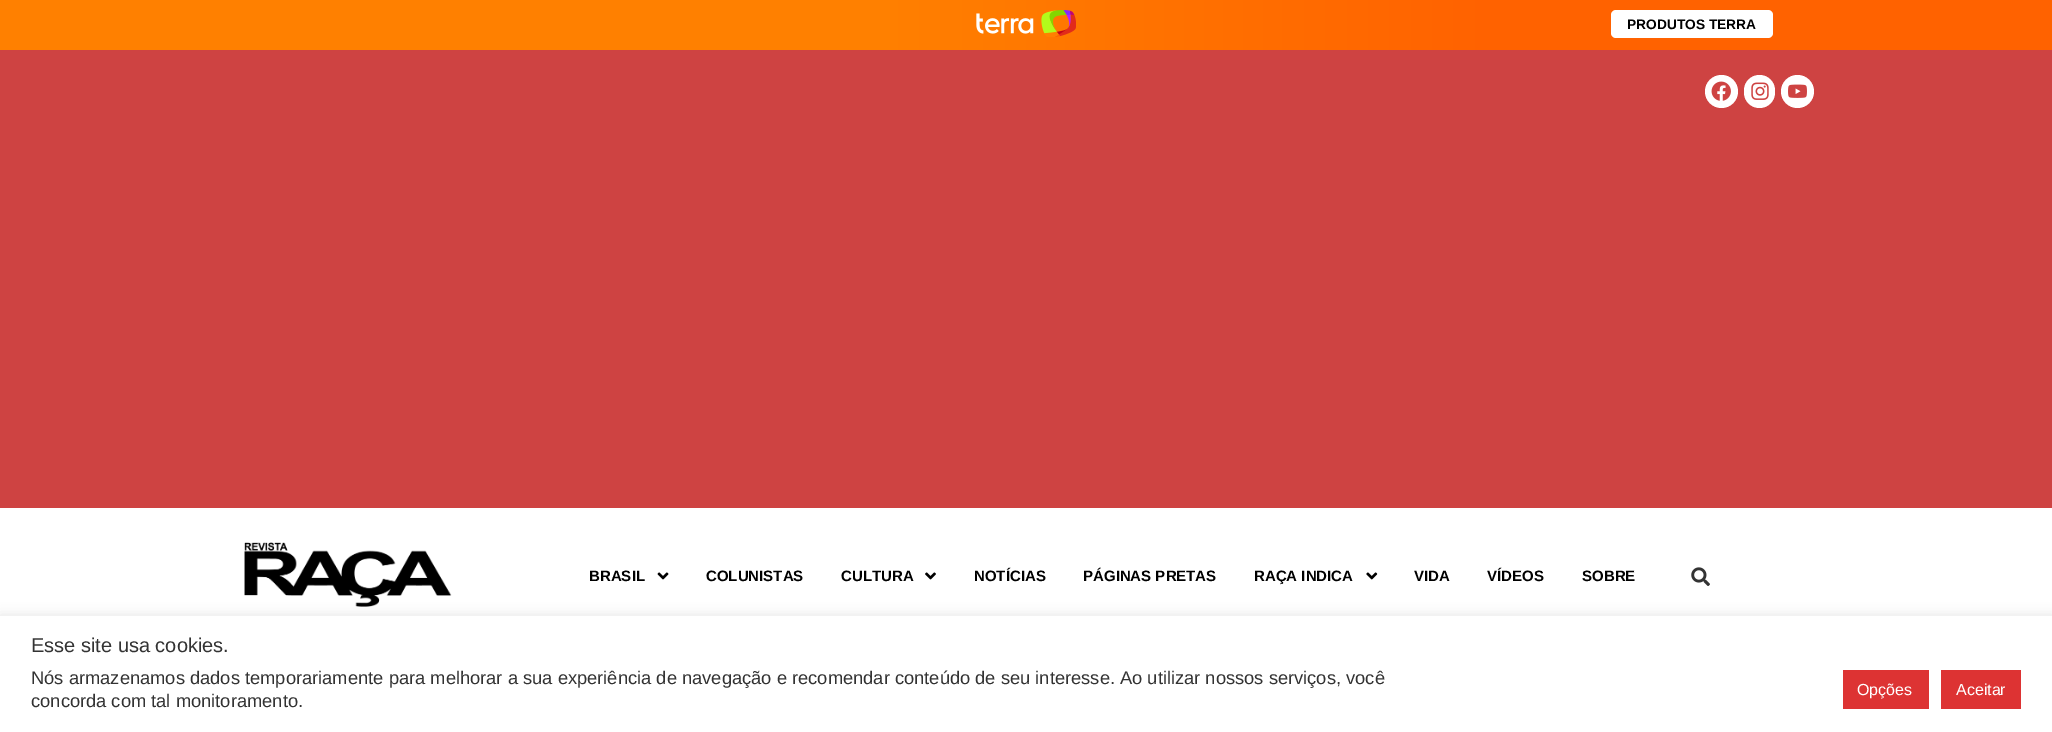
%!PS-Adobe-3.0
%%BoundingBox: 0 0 2052 732
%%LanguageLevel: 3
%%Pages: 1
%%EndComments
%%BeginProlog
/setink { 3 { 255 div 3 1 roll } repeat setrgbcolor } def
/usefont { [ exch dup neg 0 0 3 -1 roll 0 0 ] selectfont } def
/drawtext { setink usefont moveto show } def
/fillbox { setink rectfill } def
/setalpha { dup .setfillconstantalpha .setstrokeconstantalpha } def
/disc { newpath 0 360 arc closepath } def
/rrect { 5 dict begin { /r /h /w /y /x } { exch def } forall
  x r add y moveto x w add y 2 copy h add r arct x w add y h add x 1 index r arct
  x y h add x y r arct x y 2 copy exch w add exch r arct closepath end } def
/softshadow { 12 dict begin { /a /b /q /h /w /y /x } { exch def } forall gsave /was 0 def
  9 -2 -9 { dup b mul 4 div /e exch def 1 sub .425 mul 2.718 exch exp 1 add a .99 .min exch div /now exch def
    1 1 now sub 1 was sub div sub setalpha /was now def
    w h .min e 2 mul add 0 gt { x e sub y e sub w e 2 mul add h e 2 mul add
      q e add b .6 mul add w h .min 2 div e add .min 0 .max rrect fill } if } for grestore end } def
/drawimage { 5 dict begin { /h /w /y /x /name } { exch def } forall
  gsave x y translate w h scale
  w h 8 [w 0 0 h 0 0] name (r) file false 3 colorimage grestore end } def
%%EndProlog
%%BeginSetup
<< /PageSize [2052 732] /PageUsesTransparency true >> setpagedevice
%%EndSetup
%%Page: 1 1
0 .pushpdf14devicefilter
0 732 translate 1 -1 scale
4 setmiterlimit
0 0 2052 732 255 255 255 fillbox
gsave 0 0 moveto 2052 0 lineto 2052 50 lineto 0 50 lineto closepath clip newpath
<< /ShadingType 2 /ColorSpace /DeviceRGB /Coords [0 25 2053 25] /Extend [true true] /Function << /FunctionType 3 /Domain [0 1] /Functions [<< /FunctionType 2 /Domain [0 1] /C0 [1 0.502 0] /C1 [1 0.502 0] /N 1 >> << /FunctionType 2 /Domain [0 1] /C0 [1 0.502 0] /C1 [1 0.384 0] /N 1 >> << /FunctionType 2 /Domain [0 1] /C0 [1 0.384 0] /C1 [1 0.384 0] /N 1 >>] /Bounds [0.43 0.73] /Encode [0 1 0 1 0 1] >> >> shfill grestore
(assets/img1.rgb) 976 10 100 27 drawimage
1611 10 162 28 5 rrect fill
(PRODUTOS TERRA) 1627 29 /LiberationSans-Bold 13.75 0 0 0 drawtext
0 50 2052 458 206 67 66 fillbox
255 255 255 setink
1721.5 91.5 16.5 disc fill
(assets/img2.rgb) 1711 81 20 20 drawimage
1744 75 31 33 15.5 rrect fill
(assets/img3.rgb) 1751 82 18 18 drawimage
1797.5 91.5 16.5 disc fill
(assets/img4.rgb) 1788 84 19 14 drawimage
(assets/img5.rgb) 244 542 208 65 drawimage
(BRASIL) 589 581 /LiberationSans-Bold 15 0 0 0 drawtext
(assets/img6.rgb) 657 572 12 8 drawimage
(COLUNISTAS) 706 581 /LiberationSans-Bold 15 0 0 0 drawtext
(CULTURA) 841 581 /LiberationSans-Bold 15 0 0 0 drawtext
(assets/img7.rgb) 925 572 11 8 drawimage
(NOTÍCIAS) 974 581 /LiberationSans-Bold 15 0 0 0 drawtext
(PÁGINAS PRETAS) 1083 581 /LiberationSans-Bold 15 0 0 0 drawtext
(RAÇA INDICA) 1254 581 /LiberationSans-Bold 15 0 0 0 drawtext
(assets/img8.rgb) 1366 572 12 8 drawimage
(VIDA) 1414 581 /LiberationSans-Bold 15 0 0 0 drawtext
(VÍDEOS) 1487 581 /LiberationSans-Bold 15 0 0 0 drawtext
(SOBRE) 1582 581 /LiberationSans-Bold 15 0 0 0 drawtext
(assets/img9.rgb) 1691 567 19 19 drawimage
172 171 171 setink
0 615 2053 116 0 6 0.3 softshadow
0 616 2052 116 255 255 255 fillbox
(Esse site usa cookies.) 31 652 /LiberationSans-Regular 20 51 51 51 drawtext
(Nós armazenamos dados temporariamente para melhorar a sua experiência de navegação e recomendar conteúdo de seu interesse. Ao utilizar nossos serviços, você) 31 684 /LiberationSans-Regular 18.33 51 51 51 drawtext
(concorda com tal monitoramento.) 31 707 /LiberationSans-Regular 18.33 51 51 51 drawtext
1843 670 86 39 221 51 51 fillbox
(Opções) 1857 695 /LiberationSans-Regular 16 255 255 255 drawtext
1941 670 80 39 221 51 51 fillbox
(Aceitar) 1956 695 /LiberationSans-Regular 16 255 255 255 drawtext
.poppdf14devicefilter showpage
%%EOF
